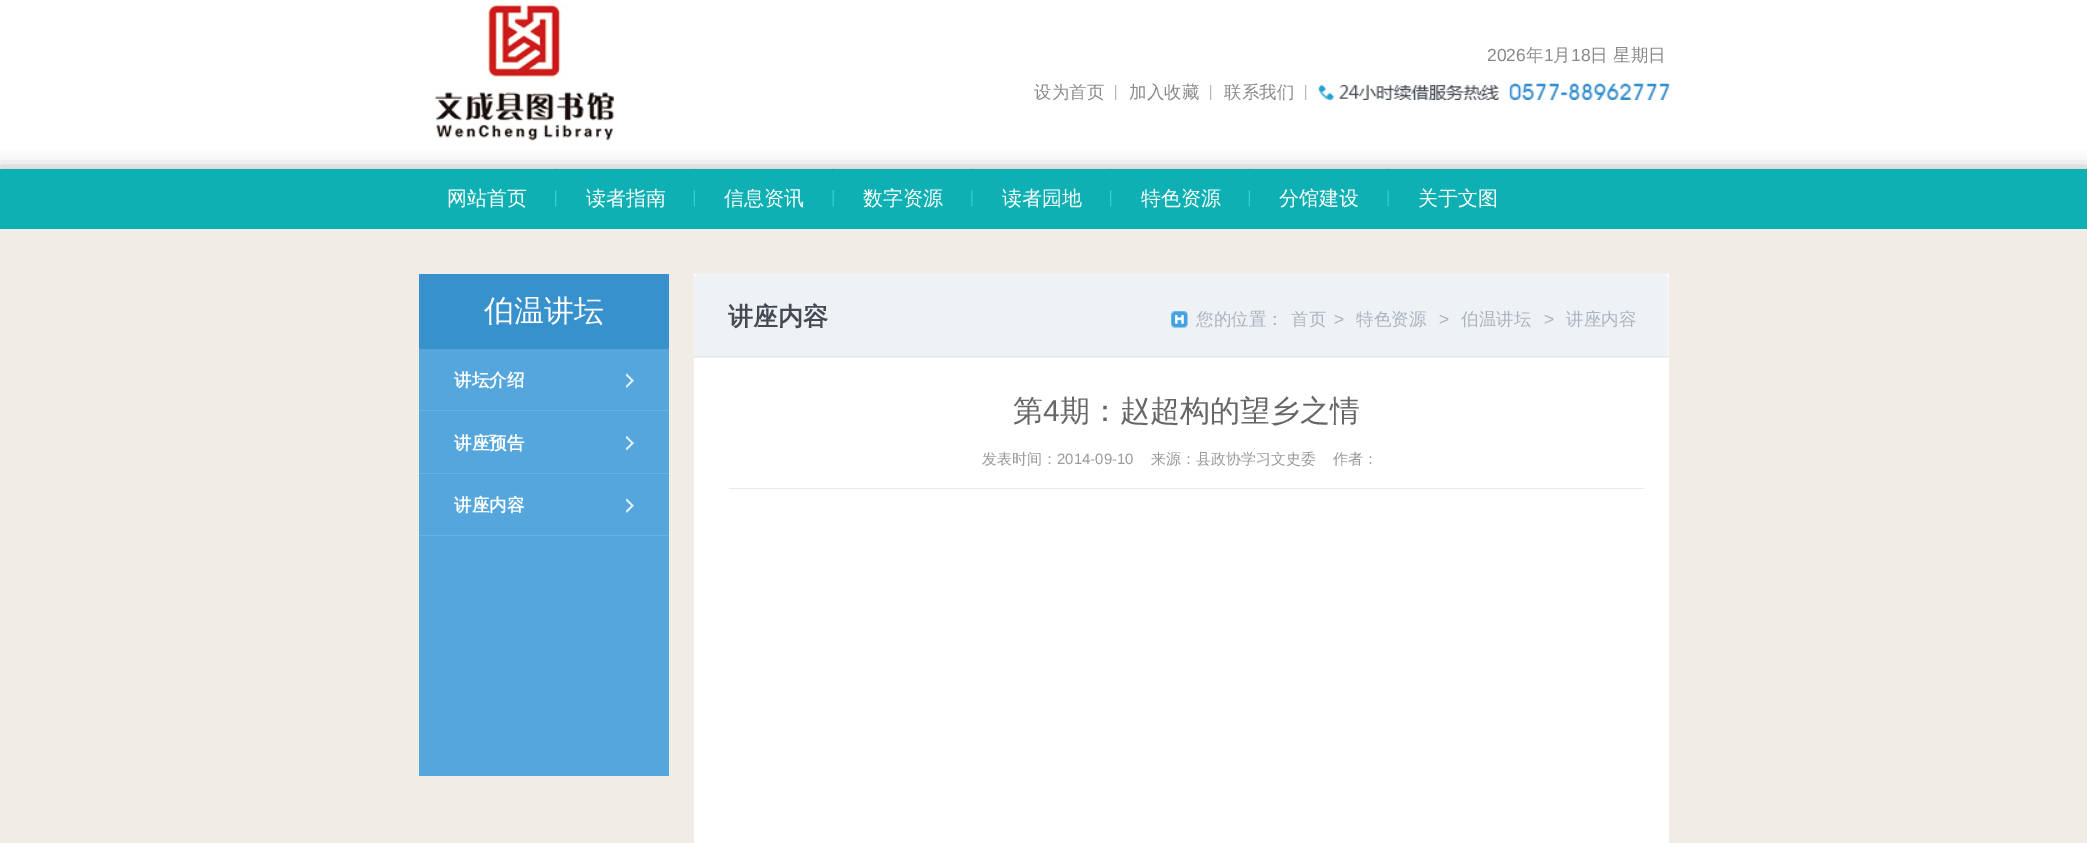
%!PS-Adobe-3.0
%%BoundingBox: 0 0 2087 843
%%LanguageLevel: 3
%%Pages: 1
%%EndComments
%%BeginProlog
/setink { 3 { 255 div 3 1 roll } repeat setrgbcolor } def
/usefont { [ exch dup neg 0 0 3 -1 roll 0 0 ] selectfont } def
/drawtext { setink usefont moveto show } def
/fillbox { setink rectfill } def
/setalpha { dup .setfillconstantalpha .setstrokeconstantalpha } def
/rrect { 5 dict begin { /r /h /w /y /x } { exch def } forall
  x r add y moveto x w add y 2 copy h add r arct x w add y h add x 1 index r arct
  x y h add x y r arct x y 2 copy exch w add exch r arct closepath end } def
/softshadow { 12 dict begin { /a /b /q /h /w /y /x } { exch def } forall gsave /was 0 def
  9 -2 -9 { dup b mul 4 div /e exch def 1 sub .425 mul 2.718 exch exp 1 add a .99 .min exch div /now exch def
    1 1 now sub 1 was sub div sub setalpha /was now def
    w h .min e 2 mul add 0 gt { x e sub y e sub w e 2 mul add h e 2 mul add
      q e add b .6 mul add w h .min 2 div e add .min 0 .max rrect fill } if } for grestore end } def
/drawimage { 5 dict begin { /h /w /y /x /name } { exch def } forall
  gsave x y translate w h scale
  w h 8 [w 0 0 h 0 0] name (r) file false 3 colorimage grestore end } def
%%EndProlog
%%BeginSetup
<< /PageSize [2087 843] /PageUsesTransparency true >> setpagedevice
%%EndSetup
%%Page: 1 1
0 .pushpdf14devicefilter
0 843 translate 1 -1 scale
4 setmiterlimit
0 0 2087 843 255 255 255 fillbox
(assets/img1.rgb) 434 4 181 137 drawimage
(2026) 1487 61 /LiberationSans-Regular 17.5 136 136 136 drawtext
(年) 1526 61 /WenQuanYiZenHei-Medium 17.5 136 136 136 drawtext
(1) 1544 61 /LiberationSans-Regular 17.5 136 136 136 drawtext
(月) 1553 61 /WenQuanYiZenHei-Medium 17.5 136 136 136 drawtext
(18) 1571 61 /LiberationSans-Regular 17.5 136 136 136 drawtext
(日) 1590 61 /WenQuanYiZenHei-Medium 17.5 136 136 136 drawtext
(星期日) 1613 61 /WenQuanYiZenHei-Medium 17.5 136 136 136 drawtext
(assets/img2.rgb) 1115 85 2 15 drawimage
(设为首页) 1034 98 /WenQuanYiZenHei-Medium 17.5 136 136 136 drawtext
(assets/img2.rgb) 1210 85 2 15 drawimage
(加入收藏) 1129 98 /WenQuanYiZenHei-Medium 17.5 136 136 136 drawtext
(assets/img2.rgb) 1305 85 2 15 drawimage
(联系我们) 1224 98 /WenQuanYiZenHei-Medium 17.5 136 136 136 drawtext
(assets/img3.rgb) 1318 83 352 17 drawimage
144 144 144 setink
0 171 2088 60 0 9 1 softshadow
0 169 2087 60 14 176 179 fillbox
(assets/img4.rgb) 555 168 2 39 drawimage
(网站首页) 447 205 /WenQuanYiZenHei-Medium 20 255 255 255 drawtext
(assets/img5.rgb) 693 168 2 39 drawimage
(读者指南) 586 205 /WenQuanYiZenHei-Medium 20 255 255 255 drawtext
(assets/img6.rgb) 832 168 2 39 drawimage
(信息资讯) 724 205 /WenQuanYiZenHei-Medium 20 255 255 255 drawtext
(assets/img7.rgb) 971 168 2 39 drawimage
(数字资源) 863 205 /WenQuanYiZenHei-Medium 20 255 255 255 drawtext
(assets/img4.rgb) 1110 168 2 39 drawimage
(读者园地) 1002 205 /WenQuanYiZenHei-Medium 20 255 255 255 drawtext
(assets/img5.rgb) 1248 168 2 39 drawimage
(特色资源) 1141 205 /WenQuanYiZenHei-Medium 20 255 255 255 drawtext
(assets/img6.rgb) 1387 168 2 39 drawimage
(分馆建设) 1279 205 /WenQuanYiZenHei-Medium 20 255 255 255 drawtext
(关于文图) 1418 205 /WenQuanYiZenHei-Medium 20 255 255 255 drawtext
0 229 2087 614 241 237 230 fillbox
419 274 250 75 55 145 204 fillbox
(伯温讲坛) 484 321 /WenQuanYiZenHei-Medium 30 255 255 255 drawtext
419 349 250 427 84 166 220 fillbox
(assets/img8.rgb) 626 373 8 15 drawimage
419 410 250 1 103 178 225 fillbox
(讲坛介绍) 454 386 /WenQuanYiZenHei-Bold 17.5 255 255 255 drawtext
(assets/img9.rgb) 626 436 8 14 drawimage
419 473 250 1 103 178 225 fillbox
(讲座预告) 454 449 /WenQuanYiZenHei-Bold 17.5 255 255 255 drawtext
(assets/img8.rgb) 626 498 8 15 drawimage
419 535 250 1 103 178 225 fillbox
(讲座内容) 454 511 /WenQuanYiZenHei-Bold 17.5 255 255 255 drawtext
694 274 975 569 255 255 255 fillbox
(assets/img10.rgb) 693 273 976 85 drawimage
(讲座内容) 728 325 /WenQuanYiZenHei-Bold 25 67 74 84 drawtext
(assets/img11.rgb) 1171 311 17 17 drawimage
(您的位置：) 1196 325 /WenQuanYiZenHei-Medium 17.5 169 178 192 drawtext
(首页) 1291 325 /WenQuanYiZenHei-Medium 17.5 169 178 192 drawtext
(>) 1334 325 /LiberationSans-Regular 17.5 169 178 192 drawtext
(特色资源) 1356 325 /WenQuanYiZenHei-Medium 17.5 169 178 192 drawtext
(>) 1439 325 /LiberationSans-Regular 17.5 169 178 192 drawtext
(伯温讲坛) 1461 325 /WenQuanYiZenHei-Medium 17.5 169 178 192 drawtext
(>) 1544 325 /LiberationSans-Regular 17.5 169 178 192 drawtext
(讲座内容) 1566 325 /WenQuanYiZenHei-Medium 17.5 169 178 192 drawtext
(第) 1013 421 /WenQuanYiZenHei-Medium 30 102 102 102 drawtext
(4) 1043 421 /LiberationSans-Regular 30 102 102 102 drawtext
(期：赵超构的望乡之情) 1060 421 /WenQuanYiZenHei-Medium 30 102 102 102 drawtext
729 488 915 1 229 234 239 fillbox
(发表时间：) 982 464 /WenQuanYiZenHei-Medium 15 153 153 153 drawtext
(2014-09-10) 1057 464 /LiberationSans-Regular 15 153 153 153 drawtext
(来源：县政协学习文史委) 1151 464 /WenQuanYiZenHei-Medium 15 153 153 153 drawtext
(作者：) 1333 464 /WenQuanYiZenHei-Medium 15 153 153 153 drawtext
.poppdf14devicefilter showpage
%%EOF
